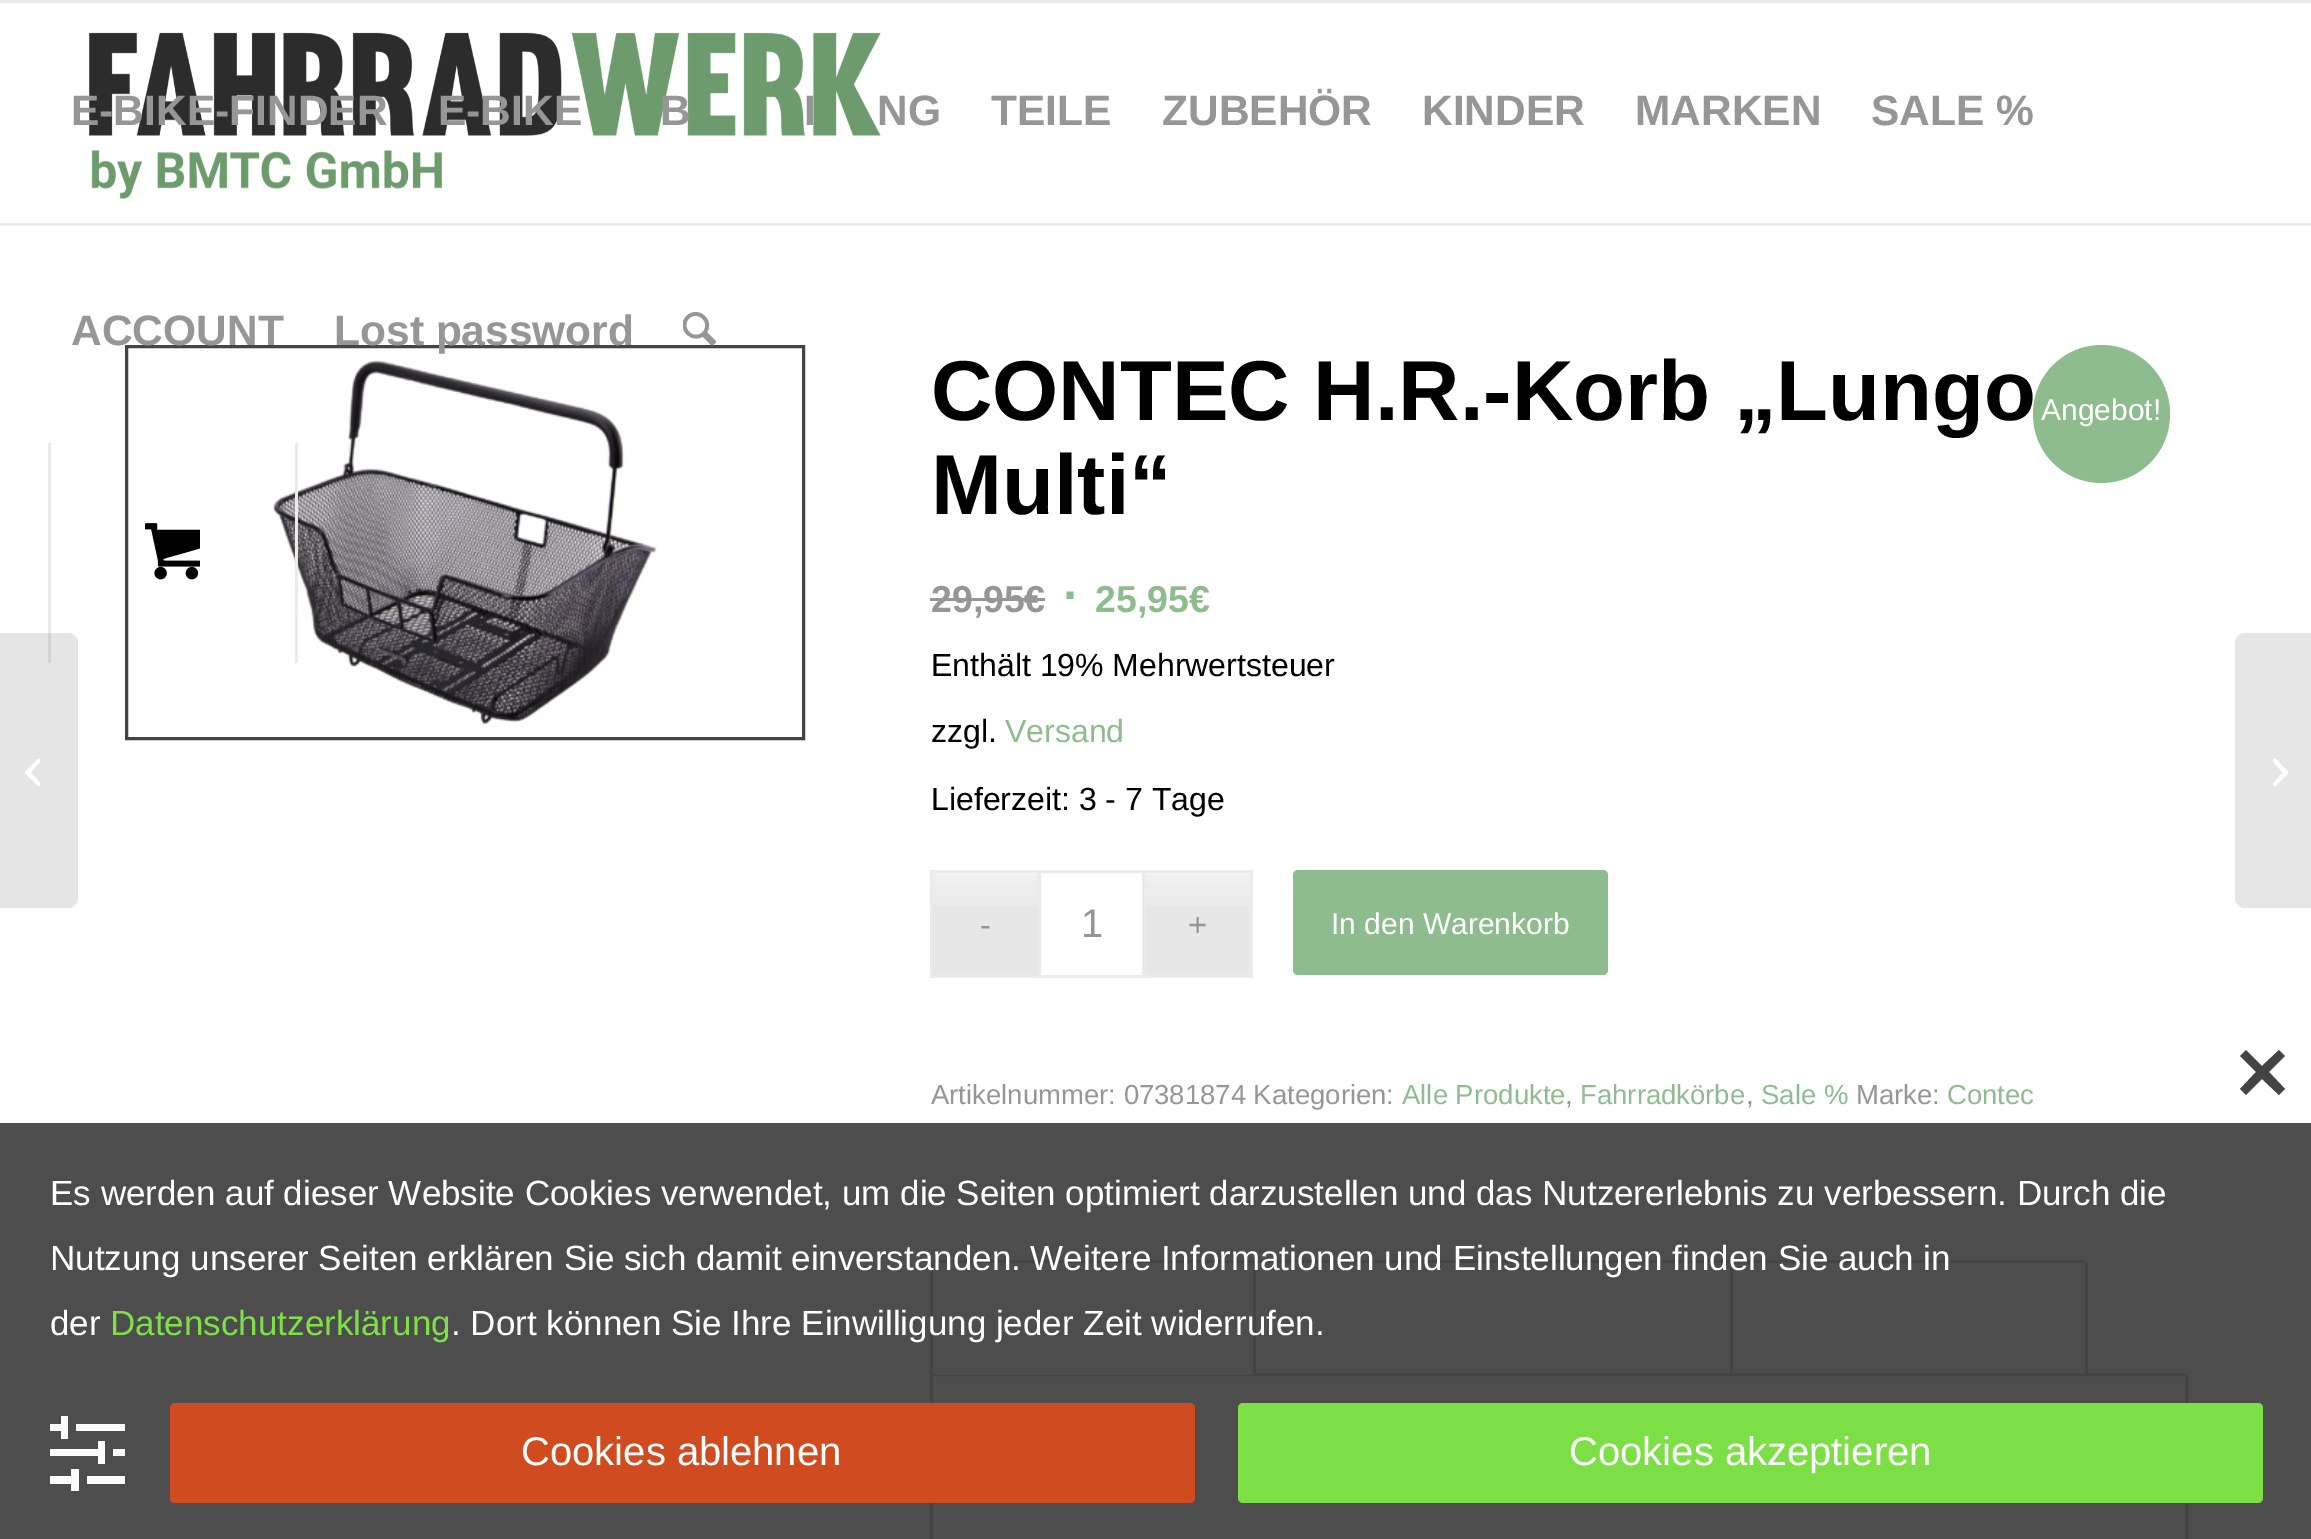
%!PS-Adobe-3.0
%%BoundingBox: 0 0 2311 1539
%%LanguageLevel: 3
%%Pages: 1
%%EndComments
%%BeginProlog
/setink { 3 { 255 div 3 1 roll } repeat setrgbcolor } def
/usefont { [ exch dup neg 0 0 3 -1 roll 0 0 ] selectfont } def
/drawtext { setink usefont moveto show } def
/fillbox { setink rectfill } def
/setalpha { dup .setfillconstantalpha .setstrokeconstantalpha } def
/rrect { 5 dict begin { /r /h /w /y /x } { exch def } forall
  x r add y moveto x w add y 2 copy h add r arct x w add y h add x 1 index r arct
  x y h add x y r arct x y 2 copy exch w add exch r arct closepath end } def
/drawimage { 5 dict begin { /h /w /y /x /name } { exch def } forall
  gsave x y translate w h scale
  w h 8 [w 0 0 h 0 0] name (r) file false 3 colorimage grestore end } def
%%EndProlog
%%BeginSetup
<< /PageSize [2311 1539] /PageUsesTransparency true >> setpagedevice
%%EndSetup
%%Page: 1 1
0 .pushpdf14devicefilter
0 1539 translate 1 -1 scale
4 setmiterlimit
0 0 2311 1539 255 255 255 fillbox
0 1123 2311 416 77 77 77 fillbox
0 0 2311 3 235 235 235 fillbox
0 223 2311 3 235 235 235 fillbox
(assets/img1.rgb) 89 32 792 167 drawimage
(E-BIKE-FINDER) 71 125 /LiberationSans-Bold 42.5 150 150 150 drawtext
(E-BIKE) 438 125 /LiberationSans-Bold 42.5 150 150 150 drawtext
(B) 660 125 /LiberationSans-Bold 42.5 150 150 150 drawtext
(I) 804 125 /LiberationSans-Bold 42.5 150 150 150 drawtext
(NG) 877 125 /LiberationSans-Bold 42.5 150 150 150 drawtext
(TEILE) 991 125 /LiberationSans-Bold 42.5 150 150 150 drawtext
(ZUBEHÖR) 1162 125 /LiberationSans-Bold 42.5 150 150 150 drawtext
(KINDER) 1422 125 /LiberationSans-Bold 42.5 150 150 150 drawtext
(MARKEN) 1635 125 /LiberationSans-Bold 42.5 150 150 150 drawtext
(SALE %) 1871 125 /LiberationSans-Bold 42.5 150 150 150 drawtext
68 68 68 setink
3 setlinewidth
126.5 346.5 677 392 rectstroke
(ACCOUNT) 71 345 /LiberationSans-Bold 42.5 150 150 150 drawtext
(Lost password) 334 345 /LiberationSans-Bold 42.5 150 150 150 drawtext
(assets/img2.rgb) 683 311 33 35 drawimage
(assets/img7.rgb) 272 360 385 365 drawimage
295 443 3 220 235 235 235 fillbox
48 443 3 220 235 235 235 fillbox
(assets/img3.rgb) 145 523 55 57 drawimage
0.1 setalpha
0 0 0 setink
0 633 moveto 68 633 lineto 73.5 633 78 637.5 78 643 curveto 78 898 lineto 78 903.5 73.5 908 68 908 curveto 0 908 lineto closepath fill
1 setalpha
(assets/img4.rgb) 25 758 15 29 drawimage
(CONTEC H.R.-Korb „Lungo) 931 420 /LiberationSans-Bold 85 0 0 0 drawtext
(Multi“) 931 514 /LiberationSans-Bold 85 0 0 0 drawtext
(29,95) 931 612 /LiberationSans-Bold 37.5 150 150 150 drawtext
930 598 95 3 150 150 150 fillbox
(€) 1024 612 /LiberationSans-Bold 37.5 150 150 150 drawtext
1025 598 20 3 150 150 150 fillbox
(∙) 1063 612 /LiberationSans-Bold 50 143 188 143 drawtext
(25,95€) 1095 612 /LiberationSans-Bold 37.5 143 188 143 drawtext
(Enthält 19% Mehrwertsteuer) 931 676 /LiberationSans-Regular 32 0 0 0 drawtext
(zzgl.) 931 742 /LiberationSans-Regular 32 0 0 0 drawtext
(Versand) 1005 742 /LiberationSans-Regular 32 143 188 143 drawtext
(Lieferzeit: 3 - 7 Tage) 931 810 /LiberationSans-Regular 32 0 0 0 drawtext
933 873 105 102 231 231 231 fillbox
(assets/img5.rgb) 933 873 105 33 drawimage
1145 873 105 102 231 231 231 fillbox
(assets/img6.rgb) 1145 873 105 33 drawimage
(-) 980 936 /LiberationSans-Regular 33 150 150 150 drawtext
930 870 108 3 235 235 235 fillbox
930 975 108 3 235 235 235 fillbox
930 870 3 108 235 235 235 fillbox
1039.5 871.5 104 105 rectstroke
(1) 1081 937 /LiberationSans-Regular 40 150 150 150 drawtext
(+) 1188 936 /LiberationSans-Regular 33 150 150 150 drawtext
1145 870 108 3 235 235 235 fillbox
1250 870 3 108 235 235 235 fillbox
1145 975 108 3 235 235 235 fillbox
143 188 143 setink
1293 870 315 105 5 rrect fill
(In den Warenkorb) 1331 934 /LiberationSans-Regular 30 255 255 255 drawtext
(Artikelnummer: 07381874 Kategorien:) 931 1104 /LiberationSans-Regular 27.5 150 150 150 drawtext
(Alle Produkte) 1402 1104 /LiberationSans-Regular 27.5 143 188 143 drawtext
(,) 1565 1104 /LiberationSans-Regular 27.5 150 150 150 drawtext
(Fahrradkörbe) 1580 1104 /LiberationSans-Regular 27.5 143 188 143 drawtext
(,) 1746 1104 /LiberationSans-Regular 27.5 150 150 150 drawtext
(Sale %) 1761 1104 /LiberationSans-Regular 27.5 143 188 143 drawtext
(Marke:) 1856 1104 /LiberationSans-Regular 27.5 150 150 150 drawtext
(Contec) 1947 1104 /LiberationSans-Regular 27.5 143 188 143 drawtext
68 68 68 setink
931.5 1374.5 1255 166 rectstroke
930 1373 323 2 77 77 77 fillbox
933 1260 800 3 68 68 68 fillbox
1253 1260 3 115 68 68 68 fillbox
930 1263 3 112 68 68 68 fillbox
1730 1260 3 115 68 68 68 fillbox
1730 1260 355 3 68 68 68 fillbox
2085 1263 3 112 68 68 68 fillbox
143 188 143 setink
2033 345 137 138 68.5 rrect fill
(Angebot!) 2041 420 /LiberationSans-Regular 30 255 255 255 drawtext
230 230 230 setink
2245 633 moveto 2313 633 lineto 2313 908 lineto 2245 908 lineto 2239.5 908 2235 903.5 2235 898 curveto 2235 643 lineto 2235 637.5 2239.5 633 2245 633 curveto closepath fill
(assets/img8.rgb) 2273 758 15 29 drawimage
68 68 68 setink
2285 1056 moveto 2279 1050 lineto 2262 1066 lineto 2246 1050 lineto 2240 1056 lineto 2256 1072 lineto 2240 1089 lineto 2246 1095 lineto 2262 1079 lineto 2279 1095 lineto 2285 1089 lineto 2269 1072 lineto closepath eofill
(Es werden auf dieser Website Cookies verwendet, um die Seiten optimiert darzustellen und das Nutzererlebnis zu verbessern. Durch die) 50 1205 /LiberationSans-Regular 35 255 255 255 drawtext
(Nutzung unserer Seiten erklären Sie sich damit einverstanden. Weitere Informationen und Einstellungen finden Sie auch in) 50 1270 /LiberationSans-Regular 35 255 255 255 drawtext
(der) 50 1335 /LiberationSans-Regular 35 255 255 255 drawtext
(Datenschutzerklärung) 110 1335 /LiberationSans-Regular 35 125 224 71 drawtext
(. Dort können Sie Ihre Einwilligung jeder Zeit widerrufen.) 451 1335 /LiberationSans-Regular 35 255 255 255 drawtext
76 1424 49 7 252 252 252 fillbox
50 1424 18 7 252 252 252 fillbox
61 1416 7 23 252 252 252 fillbox
113 1449 12 7 252 252 252 fillbox
50 1449 49 7 252 252 252 fillbox
98 1441 7 23 252 252 252 fillbox
87 1476 38 8 252 252 252 fillbox
50 1476 23 8 252 252 252 fillbox
71 1469 8 22 252 252 252 fillbox
208 76 32 setink
170 1403 1025 100 5 rrect fill
(Cookies ablehnen) 521 1465 /LiberationSans-Regular 40 255 255 255 drawtext
124 223 70 setink
1238 1403 1025 100 5 rrect fill
(Cookies akzeptieren) 1569 1465 /LiberationSans-Regular 40 255 255 255 drawtext
.poppdf14devicefilter showpage
%%EOF
